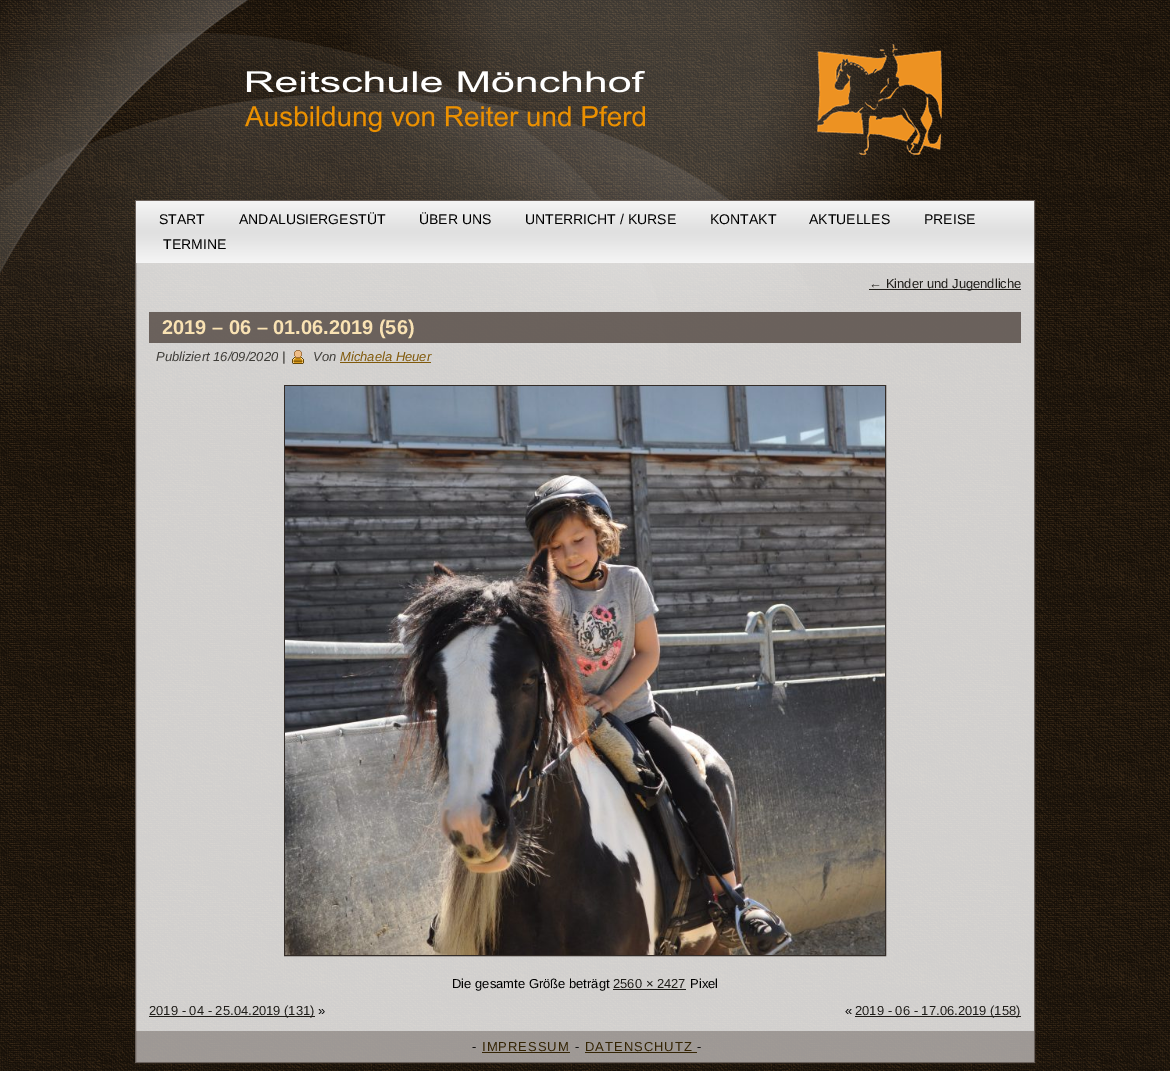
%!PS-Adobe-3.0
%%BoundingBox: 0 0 1170 1071
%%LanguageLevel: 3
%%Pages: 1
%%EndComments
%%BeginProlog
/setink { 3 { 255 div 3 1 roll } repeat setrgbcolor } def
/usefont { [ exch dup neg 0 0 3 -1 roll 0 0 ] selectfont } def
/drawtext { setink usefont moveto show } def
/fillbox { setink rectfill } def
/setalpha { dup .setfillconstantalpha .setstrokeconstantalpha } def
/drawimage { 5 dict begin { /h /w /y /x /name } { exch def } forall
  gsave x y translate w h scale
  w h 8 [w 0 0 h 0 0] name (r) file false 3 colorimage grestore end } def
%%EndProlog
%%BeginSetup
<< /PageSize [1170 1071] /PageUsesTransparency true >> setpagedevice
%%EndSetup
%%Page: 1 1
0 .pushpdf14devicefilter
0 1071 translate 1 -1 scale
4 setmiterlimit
0 0 1170 1071 29 21 12 fillbox
(assets/img1.rgb) 0 0 1170 1071 drawimage
(assets/img2.rgb) 245 44 697 111 drawimage
0.8 setalpha
135 200 900 863 255 255 255 fillbox
80 69 63 setink
135.5 200.5 899 862 rectstroke
1 setalpha
gsave 136 201 moveto 1034 201 lineto 1034 263 lineto 136 263 lineto closepath clip newpath
<< /ShadingType 2 /ColorSpace /DeviceRGB /Coords [585 201 585 263] /Extend [true true] /Function << /FunctionType 3 /Domain [0 1] /Functions [<< /FunctionType 2 /Domain [0 1] /C0 [0.961 0.961 0.961] /C1 [0.89 0.89 0.89] /N 1 >> << /FunctionType 2 /Domain [0 1] /C0 [0.89 0.89 0.89] /C1 [0.878 0.878 0.878] /N 1 >> << /FunctionType 2 /Domain [0 1] /C0 [0.878 0.878 0.878] /C1 [0.89 0.89 0.89] /N 1 >> << /FunctionType 2 /Domain [0 1] /C0 [0.89 0.89 0.89] /C1 [0.961 0.961 0.961] /N 1 >>] /Bounds [0.4 0.5 0.6] /Encode [0 1 0 1 0 1 0 1] >> >> shfill grestore
(START) 159 224 /LiberationSans-Regular 14 0 0 0 drawtext
(ANDALUSIERGESTÜT) 239 224 /LiberationSans-Regular 14 0 0 0 drawtext
(ÜBER UNS) 419 224 /LiberationSans-Regular 14 0 0 0 drawtext
(UNTERRICHT / KURSE) 525 224 /LiberationSans-Regular 14 0 0 0 drawtext
(KONTAKT) 710 224 /LiberationSans-Regular 14 0 0 0 drawtext
(AKTUELLES) 809 224 /LiberationSans-Regular 14 0 0 0 drawtext
(PREISE) 924 224 /LiberationSans-Regular 14 0 0 0 drawtext
(TERMINE) 163 249 /LiberationSans-Regular 14 0 0 0 drawtext
869 289 152 1 31 29 25 fillbox
(← Kinder und Jugendliche) 869 288 /LiberationSans-Regular 13 31 29 25 drawtext
0.8 setalpha
149 312 872 31 80 69 63 fillbox
1 setalpha
(2019 – 06 – 01.06.2019 \(56\)) 162 334 /LiberationSans-Bold 20 249 226 179 drawtext
(Publiziert 16/09/2020 |) 156 361 /LiberationSans-Italic 13 62 60 56 drawtext
(assets/img3.rgb) 292 350 12 15 drawimage
(Von) 313 361 /LiberationSans-Italic 13 62 60 56 drawtext
(Michaela Heuer) 340 361 /LiberationSans-Italic 13 128 89 10 drawtext
340 362 91 1 128 89 10 fillbox
51 44 40 setink
284.5 385.5 601 570 rectstroke
(assets/img4.rgb) 285 386 600 569 drawimage
(Die gesamte Größe beträgt) 452 988 /LiberationSans-Regular 13 0 0 0 drawtext
(2560 × 2427) 613 988 /LiberationSans-Regular 13 31 29 25 drawtext
613 989 73 1 31 29 25 fillbox
(Pixel) 690 988 /LiberationSans-Regular 13 0 0 0 drawtext
149 1016 166 1 31 29 25 fillbox
(2019 - 04 - 25.04.2019 \(131\)) 149 1015 /LiberationSans-Regular 13 31 29 25 drawtext
(») 318 1015 /LiberationSans-Regular 13 0 0 0 drawtext
(«) 845 1015 /LiberationSans-Regular 13 0 0 0 drawtext
855 1016 166 1 31 29 25 fillbox
(2019 - 06 - 17.06.2019 \(158\)) 855 1015 /LiberationSans-Regular 13 31 29 25 drawtext
0.4 setalpha
136 1031 898 31 80 69 63 fillbox
1 setalpha
19 18 17 setink
472 1051 moveto 1 0 (-) ashow
52 36 4 setink
482 1051 moveto 1 0 (IMPRESSUM) ashow
482 1052 88 1 52 36 4 fillbox
19 18 17 setink
575 1051 moveto 1 0 (-) ashow
52 36 4 setink
585 1051 moveto 1 0 (DATENSCHUTZ) ashow
585 1052 112 1 52 36 4 fillbox
19 18 17 setink
697 1051 moveto 1 0 (-) ashow
.poppdf14devicefilter showpage
%%EOF
